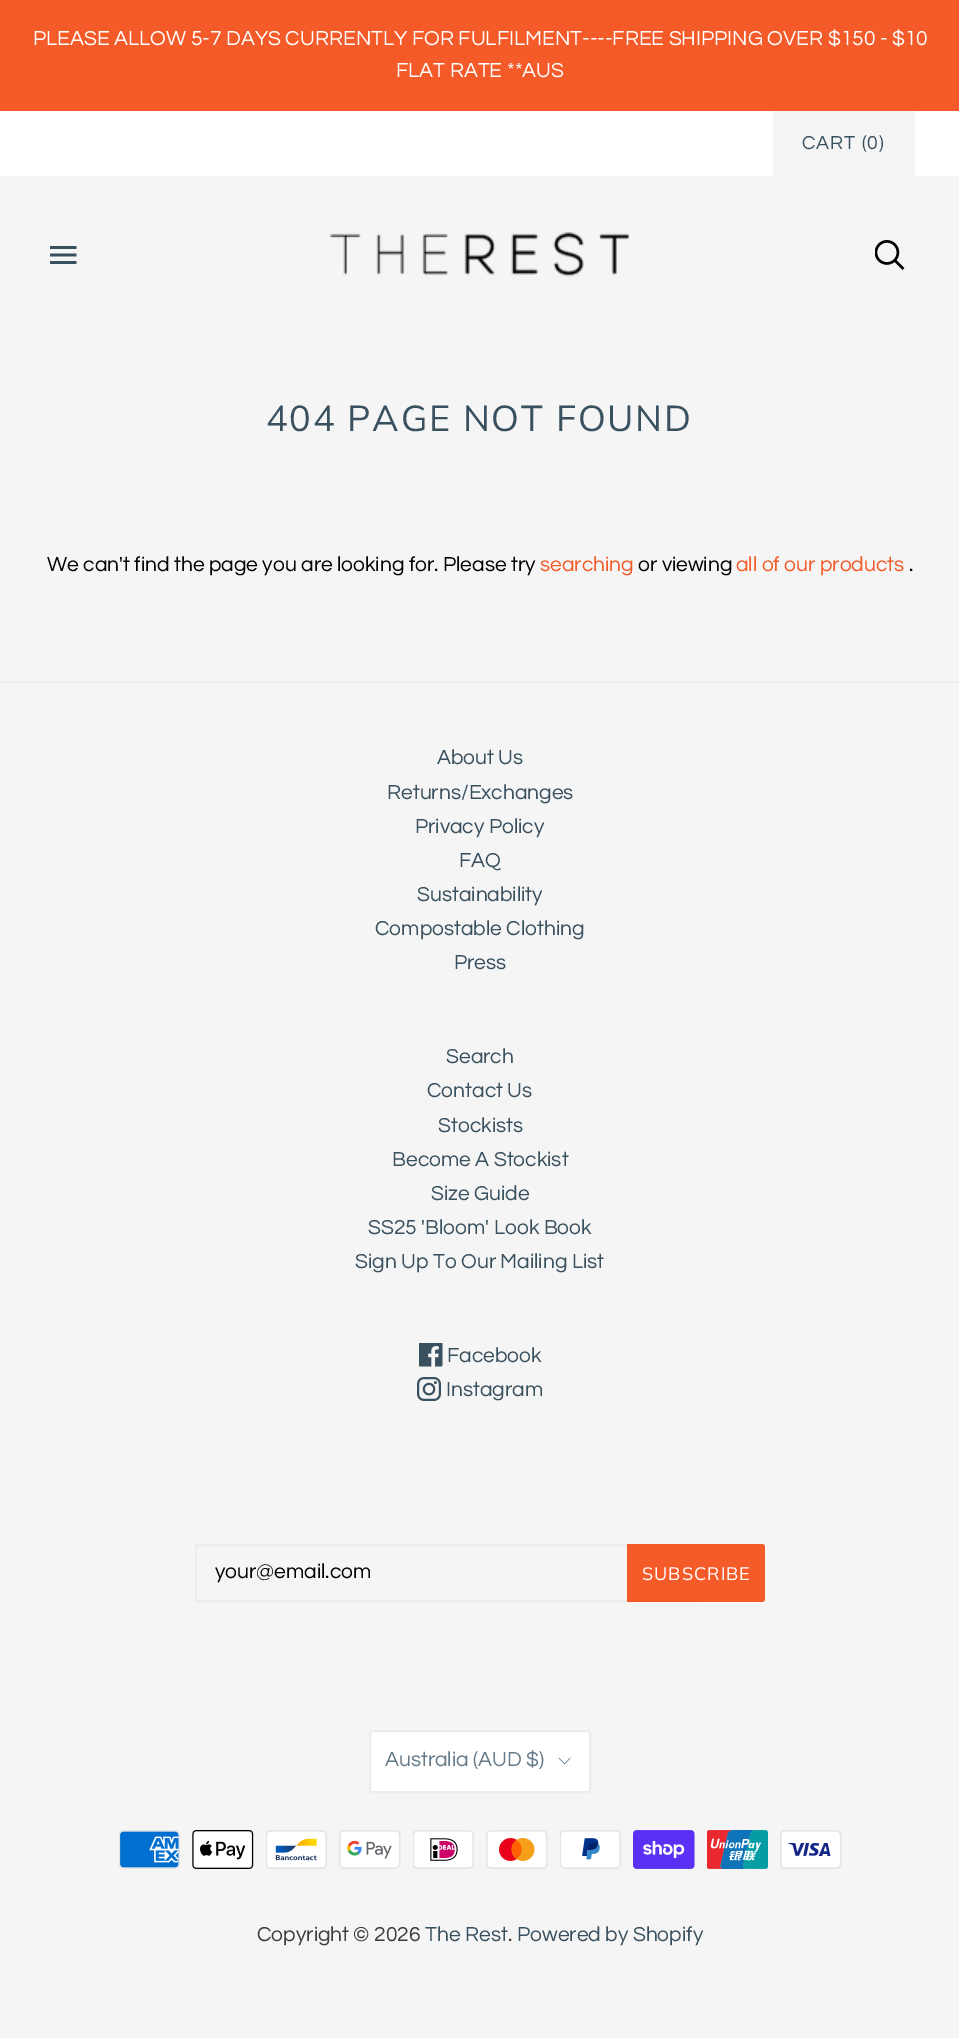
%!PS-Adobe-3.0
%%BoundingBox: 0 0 959 2038
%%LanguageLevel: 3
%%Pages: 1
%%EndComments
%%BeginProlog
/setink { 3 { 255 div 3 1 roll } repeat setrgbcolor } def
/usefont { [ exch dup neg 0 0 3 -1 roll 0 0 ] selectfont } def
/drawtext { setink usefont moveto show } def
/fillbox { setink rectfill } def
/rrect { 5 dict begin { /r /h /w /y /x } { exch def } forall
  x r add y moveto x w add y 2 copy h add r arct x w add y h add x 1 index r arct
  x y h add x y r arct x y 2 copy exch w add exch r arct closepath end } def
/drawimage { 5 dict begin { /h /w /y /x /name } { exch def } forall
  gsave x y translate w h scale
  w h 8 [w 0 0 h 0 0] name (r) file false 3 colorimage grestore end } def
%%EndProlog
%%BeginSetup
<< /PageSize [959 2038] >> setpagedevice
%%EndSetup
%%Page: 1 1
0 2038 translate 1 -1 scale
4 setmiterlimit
0 0 959 2038 245 245 245 fillbox
0 0 959 111 244 91 41 fillbox
(PLEASE ALLOW 5-7 DAYS CURRENTLY FOR FULFILMENT----FREE SHIPPING OVER $150 - $10) 33 45 /Questrial-Regular 21 255 255 255 drawtext
(FLAT RATE **AUS) 396 77 /Questrial-Regular 21 255 255 255 drawtext
0 111 959 65 255 255 255 fillbox
773 111 142 65 245 245 245 fillbox
/Questrial-Regular 19.5 usefont
57 80 95 setink
802 149 moveto 1 0 (CART \(0\)) ashow
(assets/img1.rgb) 50 246 27 18 drawimage
(assets/img2.rgb) 330 232 300 45 drawimage
(assets/img3.rgb) 875 240 30 30 drawimage
/Muli-Regular 36 usefont
266 431 moveto 1.75 0 (404 PAGE NOT FOUND) ashow
(We can't find the page you are looking for. Please try) 47 571 /Questrial-Regular 21 0 0 0 drawtext
(searching) 540 571 /Questrial-Regular 21 244 91 41 drawtext
(or viewing) 638 571 /Questrial-Regular 21 0 0 0 drawtext
(all of our products) 736 571 /Questrial-Regular 21 244 91 41 drawtext
(.) 909 571 /Questrial-Regular 21 0 0 0 drawtext
0 681 959 2 237 236 234 fillbox
(About Us) 437 764 /Questrial-Regular 21 57 80 95 drawtext
(Returns/Exchanges) 387 799 /Questrial-Regular 21 57 80 95 drawtext
(Privacy Policy) 415 833 /Questrial-Regular 21 57 80 95 drawtext
(FAQ) 459 867 /Questrial-Regular 21 57 80 95 drawtext
(Sustainability) 417 901 /Questrial-Regular 21 57 80 95 drawtext
(Compostable Clothing) 375 935 /Questrial-Regular 21 57 80 95 drawtext
(Press) 454 969 /Questrial-Regular 21 57 80 95 drawtext
(Search) 446 1063 /Questrial-Regular 21 57 80 95 drawtext
(Contact Us) 427 1097 /Questrial-Regular 21 57 80 95 drawtext
(Stockists) 438 1132 /Questrial-Regular 21 57 80 95 drawtext
(Become A Stockist) 392 1166 /Questrial-Regular 21 57 80 95 drawtext
(Size Guide) 431 1200 /Questrial-Regular 21 57 80 95 drawtext
(SS25 'Bloom' Look Book) 368 1234 /Questrial-Regular 21 57 80 95 drawtext
(Sign Up To Our Mailing List) 355 1268 /Questrial-Regular 21 57 80 95 drawtext
(assets/img4.rgb) 419 1343 24 24 drawimage
(Facebook) 447 1362 /Questrial-Regular 21 57 80 95 drawtext
(assets/img5.rgb) 417 1377 24 24 drawimage
(Instagram) 446 1396 /Questrial-Regular 21 57 80 95 drawtext
237 236 234 setink
2 setlinewidth
196 1545 508 56 2 rrect stroke
(your@email.com) 215 1578 /Questrial-Regular 21 0 0 0 drawtext
244 91 41 setink
627 1544 moveto 762 1544 lineto 763.5 1544 765 1545.5 765 1547 curveto 765 1599 lineto 765 1600.5 763.5 1602 762 1602 curveto 627 1602 lineto closepath fill
/Muli-Regular 18 usefont
255 255 255 setink
642 1580 moveto 1 0 (SUBSCRIBE) ashow
370 1731 220 61 2 rrect gsave fill grestore
237 236 234 setink
stroke
(Australia \(AUD $\)) 385 1766 /Questrial-Regular 21 101 123 137 drawtext
(assets/img6.rgb) 558 1757 13 8 drawimage
(assets/img7.rgb) 119 1830 61 39 drawimage
(assets/img8.rgb) 192 1830 62 39 drawimage
(assets/img9.rgb) 266 1830 61 39 drawimage
(assets/img10.rgb) 339 1830 62 39 drawimage
(assets/img11.rgb) 413 1830 61 39 drawimage
(assets/img12.rgb) 486 1830 62 39 drawimage
(assets/img13.rgb) 560 1830 61 39 drawimage
(assets/img14.rgb) 633 1830 62 39 drawimage
(assets/img15.rgb) 707 1830 61 39 drawimage
(assets/img16.rgb) 780 1830 62 39 drawimage
(Copyright © 2026) 257 1941 /Questrial-Regular 21 61 61 61 drawtext
(The Rest) 425 1941 /Questrial-Regular 21 57 80 95 drawtext
(.) 508 1941 /Questrial-Regular 21 61 61 61 drawtext
(Powered by Shopify) 517 1941 /Questrial-Regular 21 57 80 95 drawtext
showpage
%%EOF
